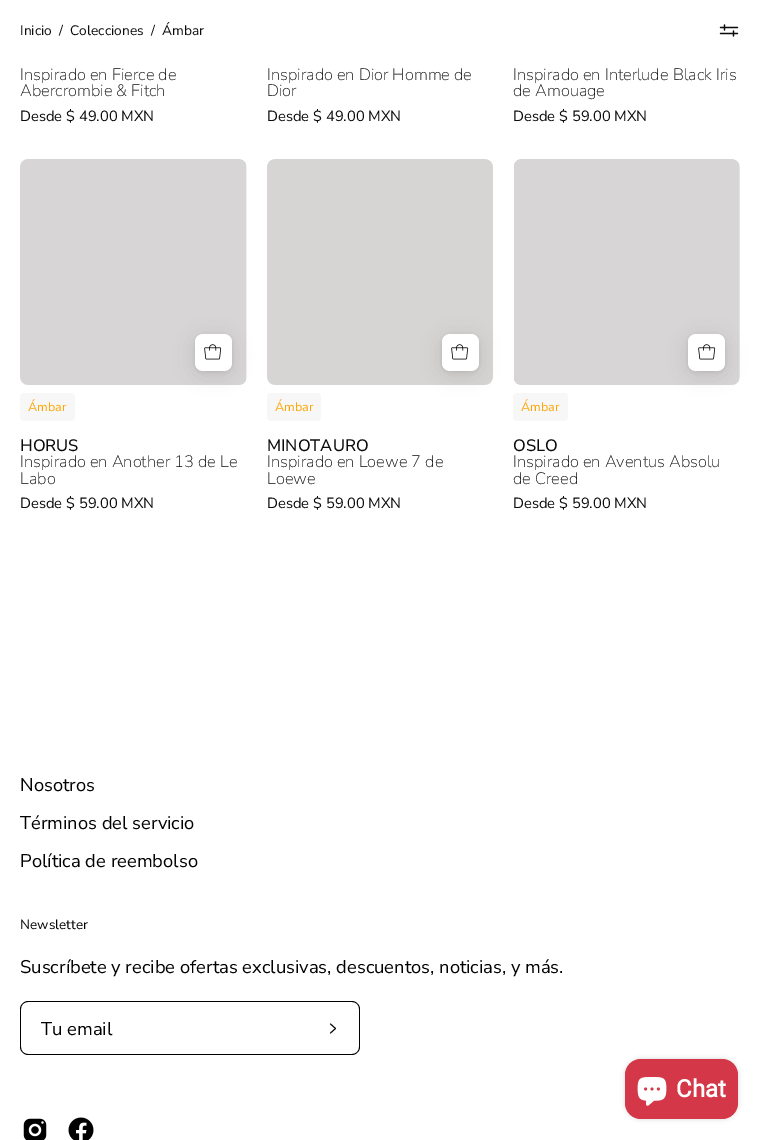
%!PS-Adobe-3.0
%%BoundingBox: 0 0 760 1140
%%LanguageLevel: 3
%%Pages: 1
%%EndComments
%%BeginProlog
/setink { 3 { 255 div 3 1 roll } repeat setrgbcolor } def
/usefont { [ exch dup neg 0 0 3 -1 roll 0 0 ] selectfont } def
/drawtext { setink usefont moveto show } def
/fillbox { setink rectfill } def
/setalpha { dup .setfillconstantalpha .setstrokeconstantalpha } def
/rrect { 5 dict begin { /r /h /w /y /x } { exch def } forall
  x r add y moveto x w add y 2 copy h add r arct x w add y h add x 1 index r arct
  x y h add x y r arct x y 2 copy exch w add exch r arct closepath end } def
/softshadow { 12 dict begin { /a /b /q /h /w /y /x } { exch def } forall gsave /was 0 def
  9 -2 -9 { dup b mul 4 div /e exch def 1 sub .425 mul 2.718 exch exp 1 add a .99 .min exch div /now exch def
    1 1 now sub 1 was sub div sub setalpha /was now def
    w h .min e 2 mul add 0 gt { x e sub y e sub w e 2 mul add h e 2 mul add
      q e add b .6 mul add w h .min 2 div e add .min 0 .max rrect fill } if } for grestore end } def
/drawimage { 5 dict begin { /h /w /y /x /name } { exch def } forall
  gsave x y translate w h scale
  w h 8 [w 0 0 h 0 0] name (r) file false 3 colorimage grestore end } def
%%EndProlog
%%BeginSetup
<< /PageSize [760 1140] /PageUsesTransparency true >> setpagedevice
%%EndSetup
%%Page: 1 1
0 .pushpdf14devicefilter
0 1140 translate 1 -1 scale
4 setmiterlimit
0 0 760 1140 255 255 255 fillbox
(Inicio) 20 35 /NunitoSans-Regular 13.75 11 11 11 drawtext
(/) 59 35 /NunitoSans-Regular 13.75 11 11 11 drawtext
(Colecciones) 70 35 /NunitoSans-Regular 13.75 11 11 11 drawtext
(/) 151 35 /NunitoSans-Regular 13.75 11 11 11 drawtext
(Ámbar) 162 35 /NunitoSans-Regular 13.75 11 11 11 drawtext
(assets/img1.rgb) 719 24 20 13 drawimage
(Inspirado en Fierce de) 20 80 /NunitoSans-ExtraLight 16.5 11 11 11 drawtext
(Abercrombie & Fitch) 20 96 /NunitoSans-ExtraLight 16.5 11 11 11 drawtext
(Desde $ 49.00 MXN) 20 121 /NunitoSans-Regular 14.75 11 11 11 drawtext
(Inspirado en Dior Homme de) 267 80 /NunitoSans-ExtraLight 16.5 11 11 11 drawtext
(Dior) 267 96 /NunitoSans-ExtraLight 16.5 11 11 11 drawtext
(Desde $ 49.00 MXN) 267 121 /NunitoSans-Regular 14.75 11 11 11 drawtext
(Inspirado en Interlude Black Iris) 513 80 /NunitoSans-ExtraLight 16.5 11 11 11 drawtext
(de Amouage) 513 96 /NunitoSans-ExtraLight 16.5 11 11 11 drawtext
(Desde $ 59.00 MXN) 513 121 /NunitoSans-Regular 14.75 11 11 11 drawtext
(assets/img2.rgb) 20 159 227 226 drawimage
0 0 0 setink
195 335 37 37 8 1.5 0.07 softshadow
195 338 37 37 8 10 0.1 softshadow
255 255 255 setink
195 334 37 37 8 rrect fill
(assets/img3.rgb) 204 344 18 16 drawimage
247 247 247 setink
20 393 55 28 4 rrect fill
(Ámbar) 28 411 /NunitoSans-Regular 12.5 255 165 0 drawtext
(HORUS) 20 451 /NunitoSans-Medium 16.5 11 11 11 drawtext
(Inspirado en Another 13 de Le) 20 467 /NunitoSans-ExtraLight 16.5 11 11 11 drawtext
(Labo) 20 484 /NunitoSans-ExtraLight 16.5 11 11 11 drawtext
(Desde $ 59.00 MXN) 20 508 /NunitoSans-Regular 14.75 11 11 11 drawtext
(assets/img4.rgb) 267 159 226 226 drawimage
0 0 0 setink
442 335 37 37 8 1.5 0.07 softshadow
442 338 37 37 8 10 0.1 softshadow
255 255 255 setink
442 334 37 37 8 rrect fill
(assets/img5.rgb) 451 344 18 16 drawimage
247 247 247 setink
267 393 54 28 4 rrect fill
(Ámbar) 275 411 /NunitoSans-Regular 12.5 255 165 0 drawtext
(MINOTAURO) 267 451 /NunitoSans-Medium 16.5 11 11 11 drawtext
(Inspirado en Loewe 7 de) 267 467 /NunitoSans-ExtraLight 16.5 11 11 11 drawtext
(Loewe) 267 484 /NunitoSans-ExtraLight 16.5 11 11 11 drawtext
(Desde $ 59.00 MXN) 267 508 /NunitoSans-Regular 14.75 11 11 11 drawtext
(assets/img6.rgb) 514 159 226 226 drawimage
0 0 0 setink
688 335 37 37 8 1.5 0.07 softshadow
688 338 37 37 8 10 0.1 softshadow
255 255 255 setink
688 334 37 37 8 rrect fill
(assets/img5.rgb) 698 344 18 16 drawimage
247 247 247 setink
513 393 55 28 4 rrect fill
(Ámbar) 521 411 /NunitoSans-Regular 12.5 255 165 0 drawtext
(OSLO) 513 451 /NunitoSans-Medium 16.5 11 11 11 drawtext
(Inspirado en Aventus Absolu) 513 467 /NunitoSans-ExtraLight 16.5 11 11 11 drawtext
(de Creed) 513 484 /NunitoSans-ExtraLight 16.5 11 11 11 drawtext
(Desde $ 59.00 MXN) 513 508 /NunitoSans-Regular 14.75 11 11 11 drawtext
(Nosotros) 20 791 /NunitoSans-Regular 18.4 0 0 0 drawtext
(Términos del servicio) 20 829 /NunitoSans-Regular 18.4 0 0 0 drawtext
(Política de reembolso) 20 867 /NunitoSans-Regular 18.4 0 0 0 drawtext
(Newsletter) 20 929 /NunitoSans-Regular 13.5 0 0 0 drawtext
(Suscríbete y recibe ofertas exclusivas, descuentos, noticias, y más.) 20 973 /NunitoSans-Regular 18.4 0 0 0 drawtext
28 1001 moveto 306 1001 lineto 306 1055 lineto 28 1055 lineto 24 1055 20 1051 20 1047 curveto 20 1009 lineto 20 1005 24 1001 28 1001 curveto closepath 28 1002 moveto 306 1002 lineto 306 1054 lineto 28 1054 lineto 24 1054 21 1051 21 1047 curveto 21 1009 lineto 21 1005 24 1002 28 1002 curveto closepath eofill
(Tu email) 41 1035 /NunitoSans-Regular 18.4 0 0 0 drawtext
306 1001 moveto 352 1001 lineto 356 1001 360 1005 360 1009 curveto 360 1047 lineto 360 1051 356 1055 352 1055 curveto 306 1055 lineto closepath 306 1002 moveto 352 1002 lineto 356 1002 359 1005 359 1009 curveto 359 1047 lineto 359 1051 356 1054 352 1054 curveto 306 1054 lineto closepath eofill
0.9 setlinewidth
1 setlinecap
1 setlinejoin
330.5 1024 moveto 335.5 1028.5 lineto 330.5 1033 lineto stroke
(assets/img7.rgb) 23 1118 24 22 drawimage
(assets/img8.rgb) 68 1117 26 23 drawimage
625 1059 113 60 16 2.5 0.15 softshadow
212 55 71 setink
625 1059 113 60 16 rrect fill
(assets/img9.rgb) 637 1077 30 29 drawimage
(Chat) 676 1097 /Roboto-Bold 24 255 255 255 drawtext
.poppdf14devicefilter showpage
%%EOF
